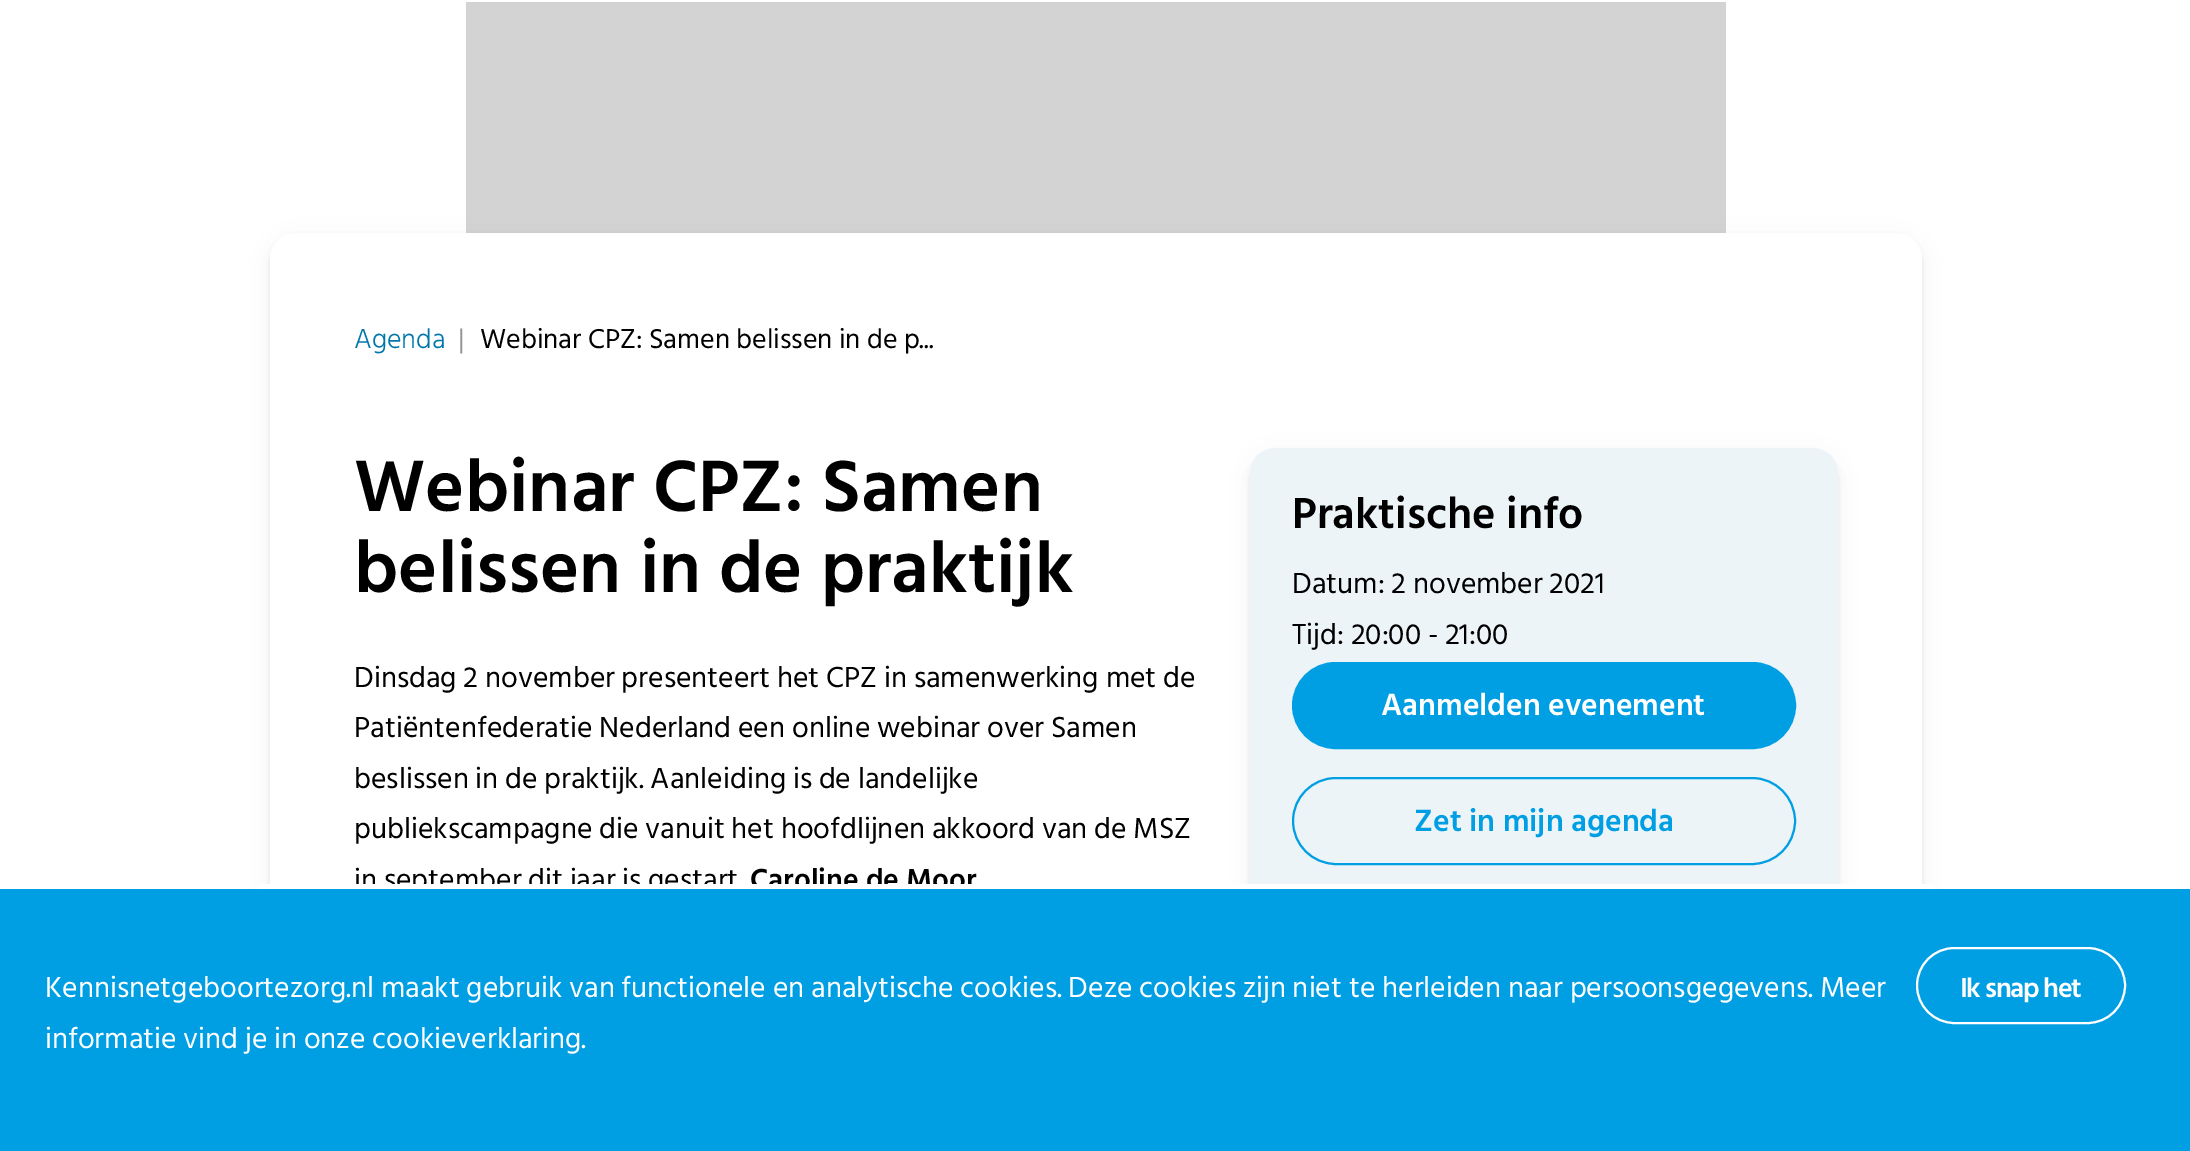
%!PS-Adobe-3.0
%%BoundingBox: 0 0 2190 1151
%%LanguageLevel: 3
%%Pages: 1
%%EndComments
%%BeginProlog
/setink { 3 { 255 div 3 1 roll } repeat setrgbcolor } def
/usefont { [ exch dup neg 0 0 3 -1 roll 0 0 ] selectfont } def
/drawtext { setink usefont moveto show } def
/fillbox { setink rectfill } def
/setalpha { dup .setfillconstantalpha .setstrokeconstantalpha } def
/rrect { 5 dict begin { /r /h /w /y /x } { exch def } forall
  x r add y moveto x w add y 2 copy h add r arct x w add y h add x 1 index r arct
  x y h add x y r arct x y 2 copy exch w add exch r arct closepath end } def
/softshadow { 12 dict begin { /a /b /q /h /w /y /x } { exch def } forall gsave /was 0 def
  9 -2 -9 { dup b mul 4 div /e exch def 1 sub .425 mul 2.718 exch exp 1 add a .99 .min exch div /now exch def
    1 1 now sub 1 was sub div sub setalpha /was now def
    w h .min e 2 mul add 0 gt { x e sub y e sub w e 2 mul add h e 2 mul add
      q e add b .6 mul add w h .min 2 div e add .min 0 .max rrect fill } if } for grestore end } def
%%EndProlog
%%BeginSetup
<< /PageSize [2190 1151] /PageUsesTransparency true >> setpagedevice
%%EndSetup
%%Page: 1 1
0 .pushpdf14devicefilter
0 1151 translate 1 -1 scale
4 setmiterlimit
0 0 2190 1151 255 255 255 fillbox
466 2 1260 231 211 211 211 fillbox
40 44 53 setink
270 236 1652 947 26 2 0.08 softshadow
270 240 1652 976 26 13 0.06 softshadow
255 255 255 setink
270 233 1652 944 26 rrect fill
(Agenda) 354 348 /HindSiliguri-Light 28 0 118 170 drawtext
(|) 458 348 /HindSiliguri-Regular 28 148 148 148 drawtext
(Webinar CPZ: Samen belissen in de p...) 480 348 /HindSiliguri-Regular 28 0 0 0 drawtext
(Webinar CPZ: Samen) 354 511 /HindSiliguri-SemiBold 74.5 0 0 0 drawtext
(belissen in de praktijk) 354 592 /HindSiliguri-SemiBold 74.5 0 0 0 drawtext
(Dinsdag 2 november presenteert het CPZ in samenwerking met de) 354 687 /HindSiliguri-Regular 29.75 0 0 0 drawtext
(Patiëntenfederatie Nederland een online webinar over Samen) 354 737 /HindSiliguri-Regular 29.75 0 0 0 drawtext
(beslissen in de praktijk. Aanleiding is de landelijke) 354 788 /HindSiliguri-Regular 29.75 0 0 0 drawtext
(publiekscampagne die vanuit het hoofdlijnen akkoord van de MSZ) 354 838 /HindSiliguri-Regular 29.75 0 0 0 drawtext
(in september dit jaar is gestart) 354 889 /HindSiliguri-Regular 29.75 0 0 0 drawtext
(Caroline de Moor) 750 889 /HindSiliguri-SemiBold 29.75 0 0 0 drawtext
40 44 53 setink
1250 452 588 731 26 2 0.08 softshadow
1250 455 588 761 26 13 0.06 softshadow
236 244 248 setink
1250 448 588 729 26 rrect fill
(Praktische info) 1292 528 /HindSiliguri-SemiBold 44.5 0 0 0 drawtext
(Datum: 2 november 2021) 1292 593 /HindSiliguri-Regular 29.75 0 0 0 drawtext
(Tijd: 20:00 - 21:00) 1292 644 /HindSiliguri-Regular 29.75 0 0 0 drawtext
0 158 227 setink
1293 663 502 85 42.5 rrect gsave fill grestore
2 setlinewidth
stroke
(Aanmelden evenement) 1381 715 /HindSiliguri-SemiBold 31.5 255 255 255 drawtext
0 158 227 setink
1293 778 502 86 43 rrect stroke
(Zet in mijn agenda) 1414 831 /HindSiliguri-SemiBold 31.5 0 158 227 drawtext
0 889 2190 262 0 158 227 fillbox
259 884 1674 5 255 255 255 fillbox
(Kennisnetgeboortezorg.nl maakt gebruik van functionele en analytische cookies. Deze cookies zijn niet te herleiden naar persoonsgegevens. Meer) 45 997 /HindSiliguri-Regular 29.75 255 255 255 drawtext
(informatie vind je in onze cookieverklaring.) 45 1048 /HindSiliguri-Regular 29.75 255 255 255 drawtext
1917 948 208 75 37.5 rrect stroke
/HindSiliguri-SemiBold 28 usefont
1960 997 moveto -1.4 0 (Ik snap het) ashow
.poppdf14devicefilter showpage
%%EOF
